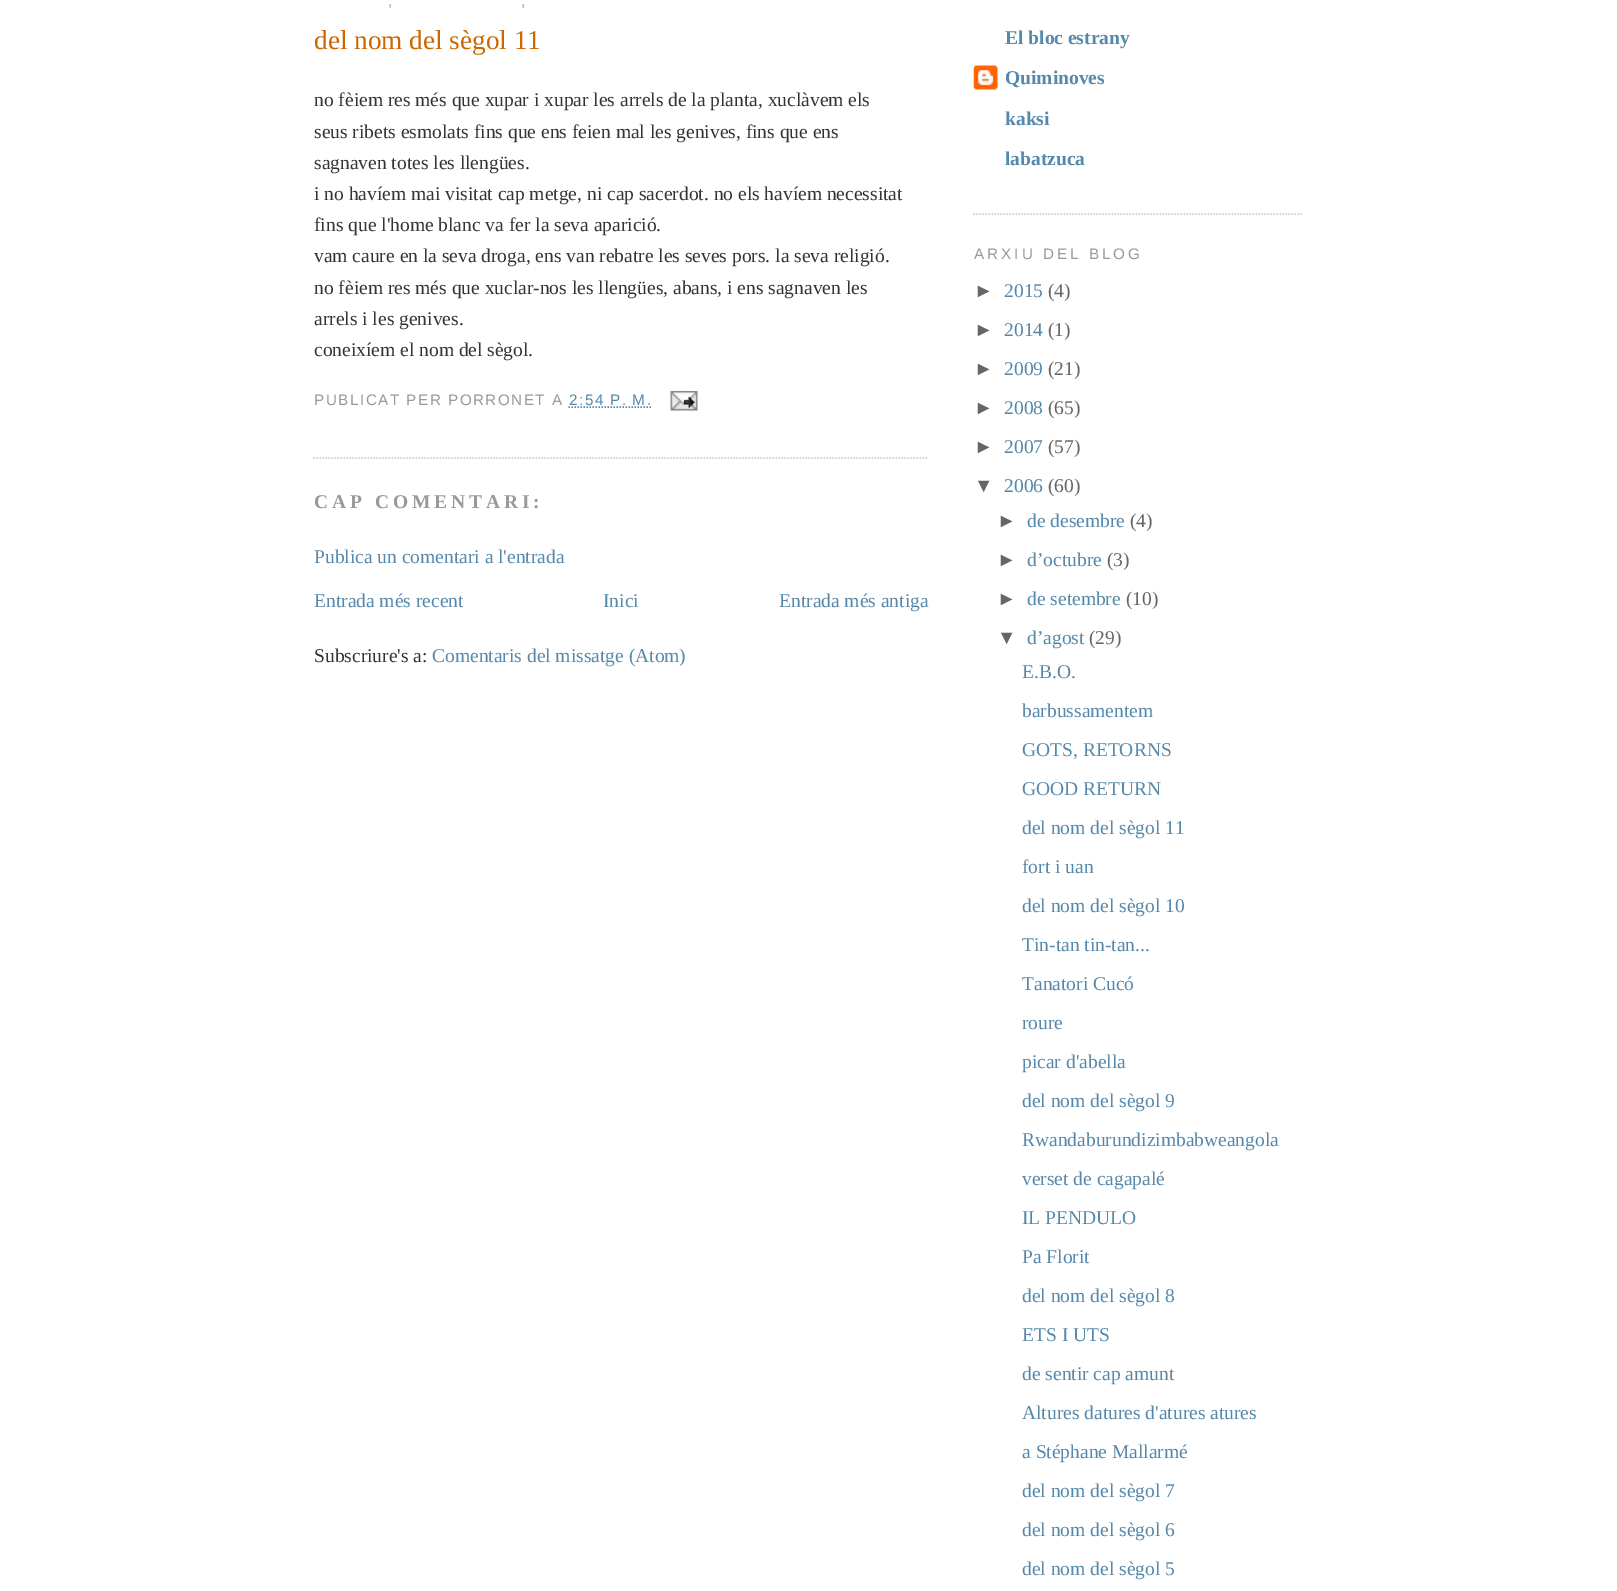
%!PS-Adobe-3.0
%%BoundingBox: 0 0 1617 1591
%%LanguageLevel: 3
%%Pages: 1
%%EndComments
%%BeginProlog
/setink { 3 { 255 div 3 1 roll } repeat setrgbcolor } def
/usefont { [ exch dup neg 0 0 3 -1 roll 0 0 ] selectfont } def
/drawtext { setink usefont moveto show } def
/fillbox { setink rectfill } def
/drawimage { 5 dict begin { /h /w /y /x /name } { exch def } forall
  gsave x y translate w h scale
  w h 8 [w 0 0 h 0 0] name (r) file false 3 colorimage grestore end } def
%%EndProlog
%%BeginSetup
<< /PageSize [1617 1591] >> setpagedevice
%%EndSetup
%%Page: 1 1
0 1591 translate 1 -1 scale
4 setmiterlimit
0 0 1617 1591 255 255 255 fillbox
/LiberationSans-Regular 15.25 usefont
153 153 153 setink
388 6 moveto 3 0 (,) ashow
521 6 moveto 3 0 (,) ashow
204 204 204 setink
1.5 setlinewidth
[1.5 1.5] 0 setdash
313.5 458 moveto 928.5 458 lineto stroke
(del nom del sègol 11) 314 49 /LiberationSerif-Regular 27.25 204 102 0 drawtext
(no fèiem res més que xupar i xupar les arrels de la planta, xuclàvem els) 314 106 /LiberationSerif-Regular 19.5 51 51 51 drawtext
(seus ribets esmolats fins que ens feien mal les genives, fins que ens) 314 138 /LiberationSerif-Regular 19.5 51 51 51 drawtext
(sagnaven totes les llengües.) 314 169 /LiberationSerif-Regular 19.5 51 51 51 drawtext
(i no havíem mai visitat cap metge, ni cap sacerdot. no els havíem necessitat) 314 200 /LiberationSerif-Regular 19.5 51 51 51 drawtext
(fins que l'home blanc va fer la seva aparició.) 314 231 /LiberationSerif-Regular 19.5 51 51 51 drawtext
(vam caure en la seva droga, ens van rebatre les seves pors. la seva religió.) 314 262 /LiberationSerif-Regular 19.5 51 51 51 drawtext
(no fèiem res més que xuclar-nos les llengües, abans, i ens sagnaven les) 314 294 /LiberationSerif-Regular 19.5 51 51 51 drawtext
(arrels i les genives.) 314 325 /LiberationSerif-Regular 19.5 51 51 51 drawtext
(coneixíem el nom del sègol.) 314 356 /LiberationSerif-Regular 19.5 51 51 51 drawtext
/LiberationSans-Regular 15.25 usefont
153 153 153 setink
314 405 moveto 1.5 0 (PUBLICAT PER PORRONET A) ashow
85 136 170 setink
569 405 moveto 1.5 0 (2:54 P. M.) ashow
568.5 407 moveto 652 407 lineto stroke
(assets/img1.rgb) 670 391 28 20 drawimage
/LiberationSerif-Bold 19.5 usefont
153 153 153 setink
314 508 moveto 3.9 0 (CAP COMENTARI:) ashow
(Publica un comentari a l'entrada) 314 563 /LiberationSerif-Regular 19.5 85 136 170 drawtext
(Entrada més recent) 314 607 /LiberationSerif-Regular 19.5 85 136 170 drawtext
(Inici) 603 607 /LiberationSerif-Regular 19.5 85 136 170 drawtext
(Entrada més antiga) 779 607 /LiberationSerif-Regular 19.5 85 136 170 drawtext
(Subscriure's a:) 314 662 /LiberationSerif-Regular 19.5 51 51 51 drawtext
(Comentaris del missatge \(Atom\)) 432 662 /LiberationSerif-Regular 19.5 85 136 170 drawtext
204 204 204 setink
973.5 214 moveto 1303.5 214 lineto stroke
(El bloc estrany) 1005 44 /LiberationSerif-Bold 19.5 85 136 170 drawtext
(assets/img2.rgb) 973 65 25 25 drawimage
(Quiminoves) 1005 84 /LiberationSerif-Bold 19.5 85 136 170 drawtext
(kaksi) 1005 125 /LiberationSerif-Bold 19.5 85 136 170 drawtext
(labatzuca) 1005 165 /LiberationSerif-Bold 19.5 85 136 170 drawtext
/LiberationSans-Regular 15.25 usefont
153 153 153 setink
974 259 moveto 3 0 (ARXIU DEL BLOG) ashow
(►) 974 297 /LiberationSans-Regular 19.5 102 102 102 drawtext
(2015) 1004 297 /LiberationSerif-Regular 19.5 85 136 170 drawtext
(\(4\)) 1048 297 /LiberationSerif-Regular 19.5 102 102 102 drawtext
(►) 974 336 /LiberationSans-Regular 19.5 102 102 102 drawtext
(2014) 1004 336 /LiberationSerif-Regular 19.5 85 136 170 drawtext
(\(1\)) 1048 336 /LiberationSerif-Regular 19.5 102 102 102 drawtext
(►) 974 375 /LiberationSans-Regular 19.5 102 102 102 drawtext
(2009) 1004 375 /LiberationSerif-Regular 19.5 85 136 170 drawtext
(\(21\)) 1048 375 /LiberationSerif-Regular 19.5 102 102 102 drawtext
(►) 974 414 /LiberationSans-Regular 19.5 102 102 102 drawtext
(2008) 1004 414 /LiberationSerif-Regular 19.5 85 136 170 drawtext
(\(65\)) 1048 414 /LiberationSerif-Regular 19.5 102 102 102 drawtext
(►) 974 453 /LiberationSans-Regular 19.5 102 102 102 drawtext
(2007) 1004 453 /LiberationSerif-Regular 19.5 85 136 170 drawtext
(\(57\)) 1048 453 /LiberationSerif-Regular 19.5 102 102 102 drawtext
(▼) 974 492 /LiberationSans-Regular 19.5 102 102 102 drawtext
(2006) 1004 492 /LiberationSerif-Regular 19.5 85 136 170 drawtext
(\(60\)) 1048 492 /LiberationSerif-Regular 19.5 102 102 102 drawtext
(►) 997 527 /LiberationSans-Regular 19.5 102 102 102 drawtext
(de desembre) 1027 527 /LiberationSerif-Regular 19.5 85 136 170 drawtext
(\(4\)) 1130 527 /LiberationSerif-Regular 19.5 102 102 102 drawtext
(►) 997 566 /LiberationSans-Regular 19.5 102 102 102 drawtext
(d’octubre) 1027 566 /LiberationSerif-Regular 19.5 85 136 170 drawtext
(\(3\)) 1107 566 /LiberationSerif-Regular 19.5 102 102 102 drawtext
(►) 997 605 /LiberationSans-Regular 19.5 102 102 102 drawtext
(de setembre) 1027 605 /LiberationSerif-Regular 19.5 85 136 170 drawtext
(\(10\)) 1126 605 /LiberationSerif-Regular 19.5 102 102 102 drawtext
(▼) 997 644 /LiberationSans-Regular 19.5 102 102 102 drawtext
(d’agost) 1027 644 /LiberationSerif-Regular 19.5 85 136 170 drawtext
(\(29\)) 1089 644 /LiberationSerif-Regular 19.5 102 102 102 drawtext
(E.B.O.) 1022 678 /LiberationSerif-Regular 19.5 85 136 170 drawtext
(barbussamentem) 1022 717 /LiberationSerif-Regular 19.5 85 136 170 drawtext
(GOTS, RETORNS) 1022 756 /LiberationSerif-Regular 19.5 85 136 170 drawtext
(GOOD RETURN) 1022 795 /LiberationSerif-Regular 19.5 85 136 170 drawtext
(del nom del sègol 11) 1022 834 /LiberationSerif-Regular 19.5 85 136 170 drawtext
(fort i uan) 1022 873 /LiberationSerif-Regular 19.5 85 136 170 drawtext
(del nom del sègol 10) 1022 912 /LiberationSerif-Regular 19.5 85 136 170 drawtext
(Tin-tan tin-tan...) 1022 951 /LiberationSerif-Regular 19.5 85 136 170 drawtext
(Tanatori Cucó) 1022 990 /LiberationSerif-Regular 19.5 85 136 170 drawtext
(roure) 1022 1029 /LiberationSerif-Regular 19.5 85 136 170 drawtext
(picar d'abella) 1022 1068 /LiberationSerif-Regular 19.5 85 136 170 drawtext
(del nom del sègol 9) 1022 1107 /LiberationSerif-Regular 19.5 85 136 170 drawtext
(Rwandaburundizimbabweangola) 1022 1146 /LiberationSerif-Regular 19.5 85 136 170 drawtext
(verset de cagapalé) 1022 1185 /LiberationSerif-Regular 19.5 85 136 170 drawtext
(IL PENDULO) 1022 1224 /LiberationSerif-Regular 19.5 85 136 170 drawtext
(Pa Florit) 1022 1263 /LiberationSerif-Regular 19.5 85 136 170 drawtext
(del nom del sègol 8) 1022 1302 /LiberationSerif-Regular 19.5 85 136 170 drawtext
(ETS I UTS) 1022 1341 /LiberationSerif-Regular 19.5 85 136 170 drawtext
(de sentir cap amunt) 1022 1380 /LiberationSerif-Regular 19.5 85 136 170 drawtext
(Altures datures d'atures atures) 1022 1419 /LiberationSerif-Regular 19.5 85 136 170 drawtext
(a Stéphane Mallarmé) 1022 1458 /LiberationSerif-Regular 19.5 85 136 170 drawtext
(del nom del sègol 7) 1022 1497 /LiberationSerif-Regular 19.5 85 136 170 drawtext
(del nom del sègol 6) 1022 1536 /LiberationSerif-Regular 19.5 85 136 170 drawtext
(del nom del sègol 5) 1022 1575 /LiberationSerif-Regular 19.5 85 136 170 drawtext
showpage
%%EOF
